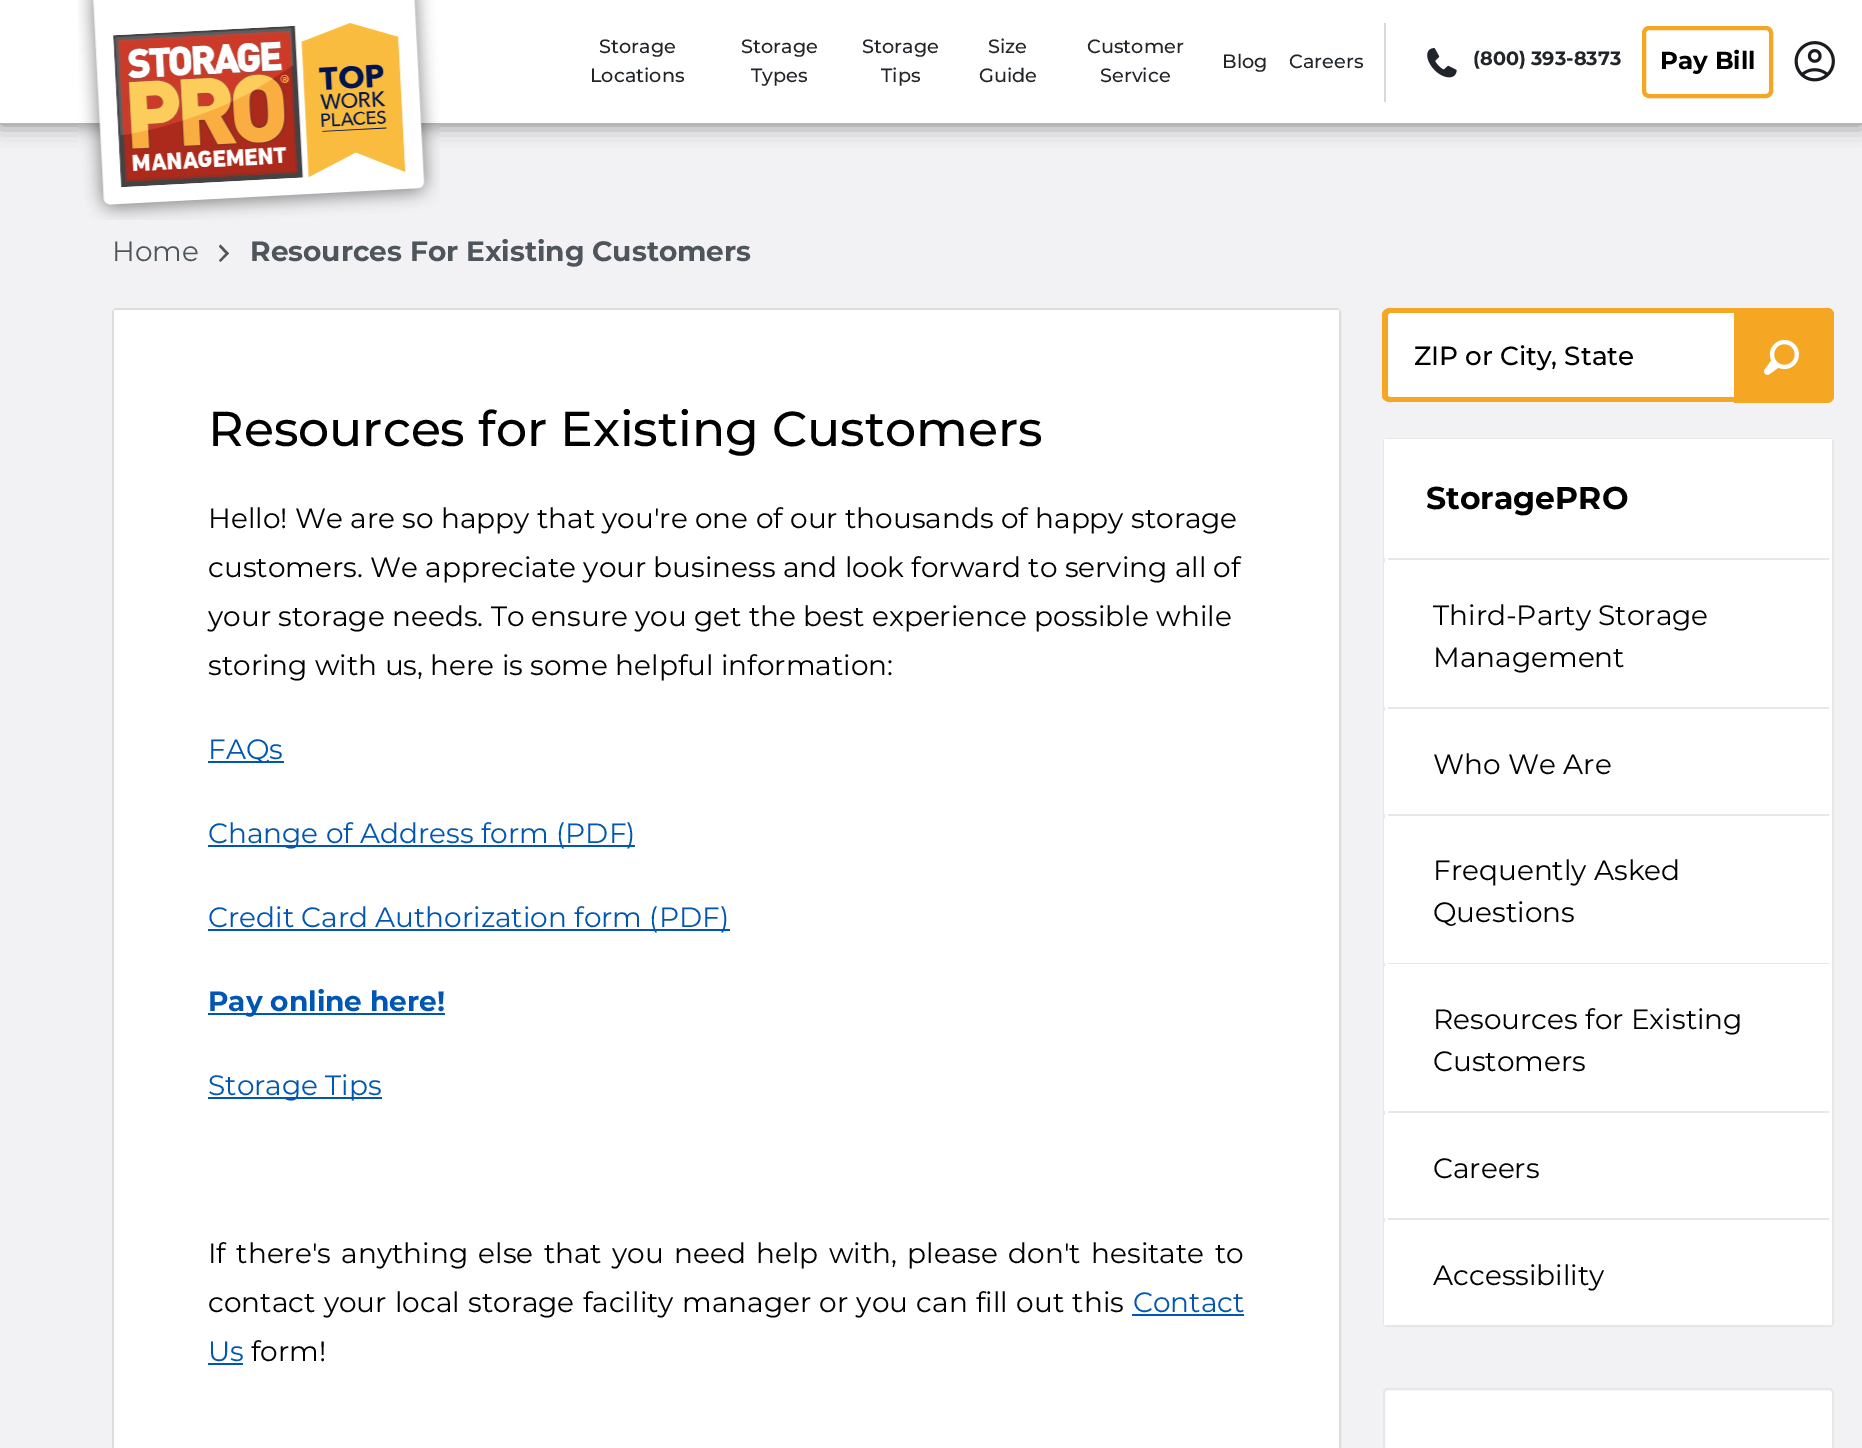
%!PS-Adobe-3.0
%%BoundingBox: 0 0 1862 1448
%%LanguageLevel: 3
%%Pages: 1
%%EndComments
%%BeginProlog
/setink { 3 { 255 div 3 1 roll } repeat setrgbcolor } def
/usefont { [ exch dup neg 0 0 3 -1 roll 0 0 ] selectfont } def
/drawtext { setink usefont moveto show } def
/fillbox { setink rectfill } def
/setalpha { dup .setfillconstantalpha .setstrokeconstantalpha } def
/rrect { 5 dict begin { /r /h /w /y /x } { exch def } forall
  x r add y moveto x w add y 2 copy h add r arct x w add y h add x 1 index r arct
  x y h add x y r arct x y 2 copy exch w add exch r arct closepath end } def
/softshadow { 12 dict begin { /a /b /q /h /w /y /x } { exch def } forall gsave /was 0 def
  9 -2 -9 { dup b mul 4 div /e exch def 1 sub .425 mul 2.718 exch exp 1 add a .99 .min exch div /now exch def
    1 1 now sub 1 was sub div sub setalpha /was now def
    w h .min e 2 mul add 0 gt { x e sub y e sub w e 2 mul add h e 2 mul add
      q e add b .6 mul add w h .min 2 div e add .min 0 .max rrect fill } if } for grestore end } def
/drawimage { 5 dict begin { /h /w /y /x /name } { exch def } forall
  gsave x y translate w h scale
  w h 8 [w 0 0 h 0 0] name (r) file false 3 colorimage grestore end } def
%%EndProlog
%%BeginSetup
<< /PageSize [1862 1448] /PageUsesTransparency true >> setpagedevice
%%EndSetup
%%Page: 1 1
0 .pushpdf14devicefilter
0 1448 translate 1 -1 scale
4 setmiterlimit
0 0 1862 1448 242 242 244 fillbox
0 0 0 setink
0 2 1862 122 0 10.5 0.5 softshadow
0 0 1862 123 255 255 255 fillbox
(assets/img1.rgb) 78 0 362 220 drawimage
(Storage) 599 53 /Montserrat-Medium 19.25 33 37 41 drawtext
(Locations) 590 82 /Montserrat-Medium 19.25 33 37 41 drawtext
(Storage) 741 53 /Montserrat-Medium 19.25 33 37 41 drawtext
(Types) 751 82 /Montserrat-Medium 19.25 33 37 41 drawtext
(Storage) 862 53 /Montserrat-Medium 19.25 33 37 41 drawtext
(Tips) 881 82 /Montserrat-Medium 19.25 33 37 41 drawtext
(Size) 988 53 /Montserrat-Medium 19.25 33 37 41 drawtext
(Guide) 979 82 /Montserrat-Medium 19.25 33 37 41 drawtext
(Customer) 1087 53 /Montserrat-Medium 19.25 33 37 41 drawtext
(Service) 1100 82 /Montserrat-Medium 19.25 33 37 41 drawtext
(Blog) 1222 68 /Montserrat-Medium 19.25 33 37 41 drawtext
(Careers) 1289 68 /Montserrat-Medium 19.25 33 37 41 drawtext
1384 23 2 79 216 216 216 fillbox
(assets/img2.rgb) 1427 48 30 30 drawimage
(\(800\) 393-8373) 1473 65 /Montserrat-Bold 19.25 33 37 41 drawtext
245 166 36 setink
4 setlinewidth
1644 28 127 68 5 rrect stroke
(Pay Bill) 1660 69 /Montserrat-Bold 24.5 0 0 0 drawtext
(assets/img3.rgb) 1794 41 41 41 drawimage
(Home) 112 261 /Montserrat-Regular 28 78 85 91 drawtext
219 260.5 moveto 220.5 262 lineto 229 253.5 lineto 220.5 244.5 lineto 219 246.5 lineto 225.5 253.5 lineto closepath fill
(Resources For Existing Customers) 250 261 /Montserrat-Bold 28 78 85 91 drawtext
221 221 221 setink
2 setlinewidth
117 309 moveto 1336 309 lineto 1338 309 1340 311 1340 313 curveto 1340 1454 lineto 113 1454 lineto 113 313 lineto 113 311 115 309 117 309 curveto closepath stroke
114 310 1225 1138 255 255 255 fillbox
(Resources for Existing Customers) 208 446 /Montserrat-Medium 49 0 0 0 drawtext
(Hello! We are so happy that you're one of our thousands of happy storage) 208 528 /Montserrat-Regular 28 0 0 0 drawtext
(customers. We appreciate your business and look forward to serving all of) 208 577 /Montserrat-Regular 28 0 0 0 drawtext
(your storage needs. To ensure you get the best experience possible while) 208 626 /Montserrat-Regular 28 0 0 0 drawtext
(storing with us, here is some helpful information:) 208 675 /Montserrat-Regular 28 0 0 0 drawtext
208 761 76 2 0 86 178 fillbox
(FAQs) 208 759 /Montserrat-Regular 28 0 86 178 drawtext
208 845 427 2 0 86 178 fillbox
(Change of Address form \(PDF\)) 208 843 /Montserrat-Regular 28 0 86 178 drawtext
208 929 522 2 0 86 178 fillbox
(Credit Card Authorization form \(PDF\)) 208 927 /Montserrat-Regular 28 0 86 178 drawtext
208 1013 237 2 0 86 178 fillbox
(Pay online here!) 208 1011 /Montserrat-Bold 28 0 86 178 drawtext
208 1097 174 2 0 86 178 fillbox
(Storage Tips) 208 1095 /Montserrat-Regular 28 0 86 178 drawtext
0 0 0 setink
208 1263 moveto 3 0 32 (If there's anything else that you need help with, please don't hesitate to) widthshow
208 1312 moveto 1 0 32 (contact your local storage facility manager or you can fill out this) widthshow
(Contact) 1133 1312 /Montserrat-Regular 28 0 86 178 drawtext
1132 1314 112 2 0 86 178 fillbox
(Us) 208 1361 /Montserrat-Regular 28 0 86 178 drawtext
208 1363 35 2 0 86 178 fillbox
(form!) 251 1361 /Montserrat-Regular 28 0 0 0 drawtext
255 255 255 setink
1390 313 moveto 1808 313 lineto 1808 397 lineto 1390 397 lineto 1389 397 1388 396 1388 395 curveto 1388 315 lineto 1388 314 1389 313 1390 313 curveto closepath fill
245 166 35 setink
1390 308 moveto 1808 308 lineto 1808 402 lineto 1390 402 lineto 1386 402 1382 399 1382 396 curveto 1382 315 lineto 1382 311 1386 308 1390 308 curveto closepath 1390 313 moveto 1808 313 lineto 1808 397 lineto 1390 397 lineto 1389 397 1388 396 1388 396 curveto 1388 315 lineto 1388 314 1389 313 1390 313 curveto closepath eofill
(ZIP or City, State) 1414 365 /Montserrat-Medium 26.25 0 0 0 drawtext
245 166 35 setink
1734 308 moveto 1827 308 lineto 1831 308 1834 311 1834 315 curveto 1834 396 lineto 1834 400 1831 403 1827 403 curveto 1734 403 lineto closepath fill
1734 308 moveto 1827 308 lineto 1831 308 1834 311 1834 315 curveto 1834 396 lineto 1834 399 1831 402 1827 402 curveto 1734 402 lineto closepath 1734 313 moveto 1827 313 lineto 1828 313 1829 314 1829 315 curveto 1829 396 lineto 1829 396 1828 397 1827 397 curveto 1734 397 lineto closepath eofill
(assets/img4.rgb) 1764 339 35 36 drawimage
255 255 255 setink
1384 439 449 887 4 rrect gsave fill grestore
231 231 231 setink
stroke
1384 439 448 119 255 255 255 fillbox
(StoragePRO) 1426 509 /Montserrat-Bold 31.5 0 0 0 drawtext
255 255 255 setink
1384 558 448 149 7 rrect fill
1388 558 441 2 231 231 231 fillbox
255 255 255 setink
1389 560 moveto 1827 560 lineto 1830 560 1832 562 1832 565 curveto 1832 707 lineto 1384 707 lineto 1384 565 lineto 1384 562 1386 560 1389 560 curveto closepath fill
(Third-Party Storage) 1433 625 /Montserrat-Regular 28 0 0 0 drawtext
(Management) 1433 667 /Montserrat-Regular 28 0 0 0 drawtext
255 255 255 setink
1384 707 448 107 7 rrect fill
1388 707 441 2 231 231 231 fillbox
255 255 255 setink
1389 709 moveto 1827 709 lineto 1830 709 1832 711 1832 714 curveto 1832 814 lineto 1384 814 lineto 1384 714 lineto 1384 711 1386 709 1389 709 curveto closepath fill
(Who We Are) 1433 774 /Montserrat-Regular 28 0 0 0 drawtext
255 255 255 setink
1384 814 448 149 7 rrect fill
1388 814 441 2 231 231 231 fillbox
255 255 255 setink
1389 816 moveto 1827 816 lineto 1830 816 1832 818 1832 821 curveto 1832 963 lineto 1384 963 lineto 1384 821 lineto 1384 818 1386 816 1389 816 curveto closepath fill
(Frequently Asked) 1433 880 /Montserrat-Regular 28 0 0 0 drawtext
(Questions) 1433 922 /Montserrat-Regular 28 0 0 0 drawtext
1388 963 441 2 231 231 231 fillbox
255 255 255 setink
1389 964 moveto 1827 964 lineto 1830 964 1832 966 1832 969 curveto 1832 1111 lineto 1384 1111 lineto 1384 969 lineto 1384 966 1386 964 1389 964 curveto closepath fill
(Resources for Existing) 1433 1029 /Montserrat-Regular 28 0 0 0 drawtext
(Customers) 1433 1071 /Montserrat-Regular 28 0 0 0 drawtext
255 255 255 setink
1384 1111 448 107 7 rrect fill
1388 1111 441 2 231 231 231 fillbox
255 255 255 setink
1389 1113 moveto 1827 1113 lineto 1830 1113 1832 1115 1832 1118 curveto 1832 1218 lineto 1384 1218 lineto 1384 1118 lineto 1384 1115 1386 1113 1389 1113 curveto closepath fill
(Careers) 1433 1178 /Montserrat-Regular 28 0 0 0 drawtext
255 255 255 setink
1384 1218 448 107 7 rrect fill
1388 1218 441 2 231 231 231 fillbox
255 255 255 setink
1389 1220 moveto 1827 1220 lineto 1830 1220 1832 1222 1832 1225 curveto 1832 1325 lineto 1384 1325 lineto 1384 1225 lineto 1384 1222 1386 1220 1389 1220 curveto closepath fill
(Accessibility) 1433 1285 /Montserrat-Regular 28 0 0 0 drawtext
255 255 255 setink
1384 1389 449 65 4 rrect gsave fill grestore
231 231 231 setink
stroke
.poppdf14devicefilter showpage
%%EOF
